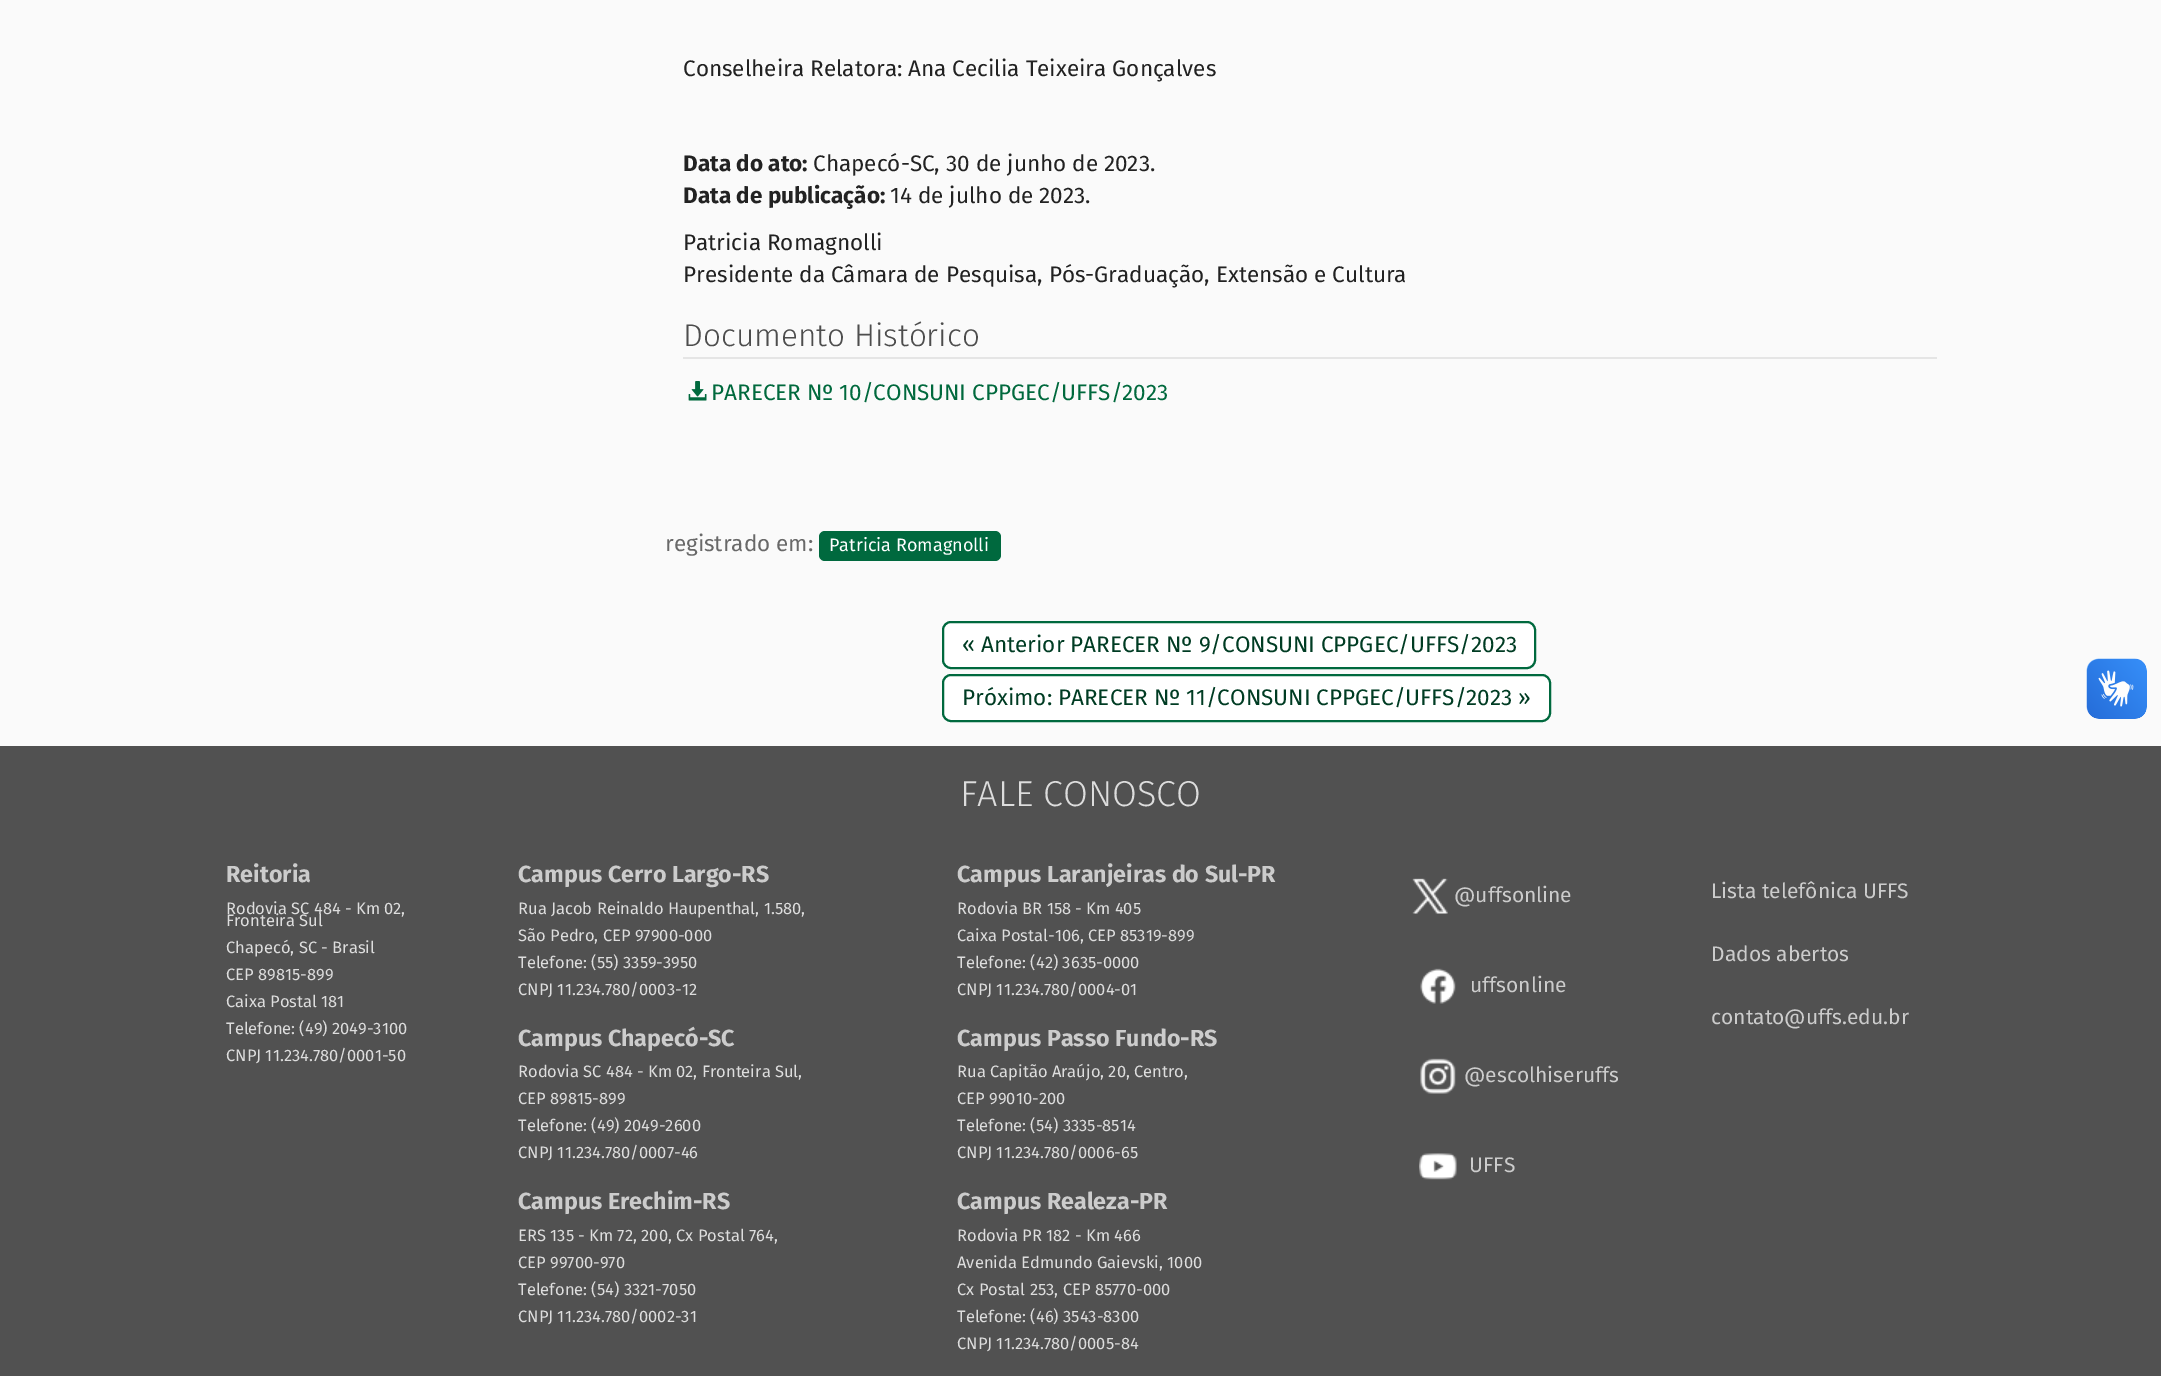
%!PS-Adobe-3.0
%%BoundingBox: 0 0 2161 1376
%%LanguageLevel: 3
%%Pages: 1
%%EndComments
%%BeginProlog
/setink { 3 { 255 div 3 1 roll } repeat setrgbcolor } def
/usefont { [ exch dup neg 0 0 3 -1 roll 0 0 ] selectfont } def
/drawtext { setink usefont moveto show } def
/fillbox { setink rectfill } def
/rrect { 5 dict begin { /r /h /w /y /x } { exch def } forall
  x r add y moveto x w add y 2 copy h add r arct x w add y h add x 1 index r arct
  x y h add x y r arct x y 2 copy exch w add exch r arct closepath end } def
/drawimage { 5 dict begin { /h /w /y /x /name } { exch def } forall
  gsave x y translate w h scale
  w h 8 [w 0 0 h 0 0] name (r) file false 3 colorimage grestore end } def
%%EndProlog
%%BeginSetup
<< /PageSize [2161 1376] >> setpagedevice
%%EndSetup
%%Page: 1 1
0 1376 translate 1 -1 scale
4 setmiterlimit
0 0 2161 1376 250 250 250 fillbox
(Conselheira Relatora: Ana Cecilia Teixeira Gonçalves) 683 76 /FiraSans-Regular 22.5 34 34 34 drawtext
(Data do ato:) 683 171 /FiraSans-Bold 22.5 34 34 34 drawtext
(Chapecó-SC, 30 de junho de 2023.) 813 171 /FiraSans-Regular 22.5 34 34 34 drawtext
(Data de publicação:) 683 203 /FiraSans-Bold 22.5 34 34 34 drawtext
(14 de julho de 2023.) 890 203 /FiraSans-Regular 22.5 34 34 34 drawtext
(Patricia Romagnolli) 683 250 /FiraSans-Regular 22.5 34 34 34 drawtext
(Presidente da Câmara de Pesquisa, Pós-Graduação, Extensão e Cultura) 683 282 /FiraSans-Regular 22.5 34 34 34 drawtext
683 357 1254 2 229 229 229 fillbox
(Documento Histórico) 683 346 /FiraSans-Light 31.5 77 77 77 drawtext
(assets/img1.rgb) 688 381 19 20 drawimage
(PARECER Nº 10/CONSUNI CPPGEC/UFFS/2023) 711 400 /FiraSans-Regular 22.5 0 105 61 drawtext
(registrado em:) 665 551 /FiraSans-Regular 22.5 105 105 105 drawtext
0 105 62 setink
819 531 182 30 6 rrect fill
(Patricia Romagnolli) 829 551 /FiraSans-Regular 18 255 255 255 drawtext
943 622 592 46 8 rrect gsave fill grestore
0 105 62 setink
2 setlinewidth
stroke
(« Anterior PARECER Nº 9/CONSUNI CPPGEC/UFFS/2023) 962 652 /FiraSans-Regular 22.5 0 60 35 drawtext
255 255 255 setink
943 675 607 46 8 rrect gsave fill grestore
0 105 62 setink
stroke
(Próximo: PARECER Nº 11/CONSUNI CPPGEC/UFFS/2023 ») 962 705 /FiraSans-Regular 22.5 0 60 35 drawtext
(assets/img2.rgb) 2086 658 61 61 drawimage
(assets/img3.rgb) 2087 659 60 60 drawimage
0 746 2161 630 81 81 81 fillbox
(FALE CONOSCO) 960 806 /FiraSans-Light 36 221 221 221 drawtext
(Reitoria) 226 882 /FiraSans-Bold 23.25 204 204 204 drawtext
(Rodovia SC 484 - Km 02,) 226 914 /FiraSans-Regular 16.5 221 221 221 drawtext
(Fronteira Sul) 226 926 /FiraSans-Regular 16.5 221 221 221 drawtext
(Chapecó, SC - Brasil) 226 953 /FiraSans-Regular 16.5 221 221 221 drawtext
(CEP 89815-899) 226 980 /FiraSans-Regular 16.5 221 221 221 drawtext
(Caixa Postal 181) 226 1007 /FiraSans-Regular 16.5 221 221 221 drawtext
(Telefone: \(49\) 2049-3100) 226 1034 /FiraSans-Regular 16.5 221 221 221 drawtext
(CNPJ 11.234.780/0001-50) 226 1061 /FiraSans-Regular 16.5 221 221 221 drawtext
(Campus Cerro Largo-RS) 518 882 /FiraSans-Bold 23.25 204 204 204 drawtext
(Rua Jacob Reinaldo Haupenthal, 1.580,) 518 914 /FiraSans-Regular 16.5 221 221 221 drawtext
(São Pedro, CEP 97900-000) 518 941 /FiraSans-Regular 16.5 221 221 221 drawtext
(Telefone: \(55\) 3359-3950) 518 968 /FiraSans-Regular 16.5 221 221 221 drawtext
(CNPJ 11.234.780/0003-12) 518 995 /FiraSans-Regular 16.5 221 221 221 drawtext
(Campus Chapecó-SC) 518 1046 /FiraSans-Bold 23.25 204 204 204 drawtext
(Rodovia SC 484 - Km 02, Fronteira Sul,) 518 1077 /FiraSans-Regular 16.5 221 221 221 drawtext
(CEP 89815-899) 518 1104 /FiraSans-Regular 16.5 221 221 221 drawtext
(Telefone: \(49\) 2049-2600) 518 1131 /FiraSans-Regular 16.5 221 221 221 drawtext
(CNPJ 11.234.780/0007-46) 518 1158 /FiraSans-Regular 16.5 221 221 221 drawtext
(Campus Erechim-RS) 518 1209 /FiraSans-Bold 23.25 204 204 204 drawtext
(ERS 135 - Km 72, 200, Cx Postal 764,) 518 1241 /FiraSans-Regular 16.5 221 221 221 drawtext
(CEP 99700-970) 518 1268 /FiraSans-Regular 16.5 221 221 221 drawtext
(Telefone: \(54\) 3321-7050) 518 1295 /FiraSans-Regular 16.5 221 221 221 drawtext
(CNPJ 11.234.780/0002-31) 518 1322 /FiraSans-Regular 16.5 221 221 221 drawtext
(Campus Laranjeiras do Sul-PR) 957 882 /FiraSans-Bold 23.25 204 204 204 drawtext
(Rodovia BR 158 - Km 405) 957 914 /FiraSans-Regular 16.5 221 221 221 drawtext
(Caixa Postal-106, CEP 85319-899) 957 941 /FiraSans-Regular 16.5 221 221 221 drawtext
(Telefone: \(42\) 3635-0000) 957 968 /FiraSans-Regular 16.5 221 221 221 drawtext
(CNPJ 11.234.780/0004-01) 957 995 /FiraSans-Regular 16.5 221 221 221 drawtext
(Campus Passo Fundo-RS) 957 1046 /FiraSans-Bold 23.25 204 204 204 drawtext
(Rua Capitão Araújo, 20, Centro,) 957 1077 /FiraSans-Regular 16.5 221 221 221 drawtext
(CEP 99010-200) 957 1104 /FiraSans-Regular 16.5 221 221 221 drawtext
(Telefone: \(54\) 3335-8514) 957 1131 /FiraSans-Regular 16.5 221 221 221 drawtext
(CNPJ 11.234.780/0006-65) 957 1158 /FiraSans-Regular 16.5 221 221 221 drawtext
(Campus Realeza-PR) 957 1209 /FiraSans-Bold 23.25 204 204 204 drawtext
(Rodovia PR 182 - Km 466) 957 1241 /FiraSans-Regular 16.5 221 221 221 drawtext
(Avenida Edmundo Gaievski, 1000) 957 1268 /FiraSans-Regular 16.5 221 221 221 drawtext
(Cx Postal 253, CEP 85770-000) 957 1295 /FiraSans-Regular 16.5 221 221 221 drawtext
(Telefone: \(46\) 3543-8300) 957 1322 /FiraSans-Regular 16.5 221 221 221 drawtext
(CNPJ 11.234.780/0005-84) 957 1349 /FiraSans-Regular 16.5 221 221 221 drawtext
(assets/img4.rgb) 1412 878 36 36 drawimage
(@uffsonline) 1454 902 /FiraSans-Regular 21 204 204 204 drawtext
(assets/img5.rgb) 1420 968 36 36 drawimage
(uffsonline) 1470 992 /FiraSans-Regular 21 204 204 204 drawtext
(assets/img6.rgb) 1420 1058 36 36 drawimage
(@escolhiseruffs) 1464 1082 /FiraSans-Regular 21 204 204 204 drawtext
(assets/img7.rgb) 1419 1153 38 27 drawimage
(UFFS) 1469 1172 /FiraSans-Regular 21 204 204 204 drawtext
(Lista telefônica UFFS) 1711 898 /FiraSans-Regular 21 204 204 204 drawtext
(Dados abertos) 1711 961 /FiraSans-Regular 21 204 204 204 drawtext
(contato@uffs.edu.br) 1711 1024 /FiraSans-Regular 21 204 204 204 drawtext
showpage
%%EOF
